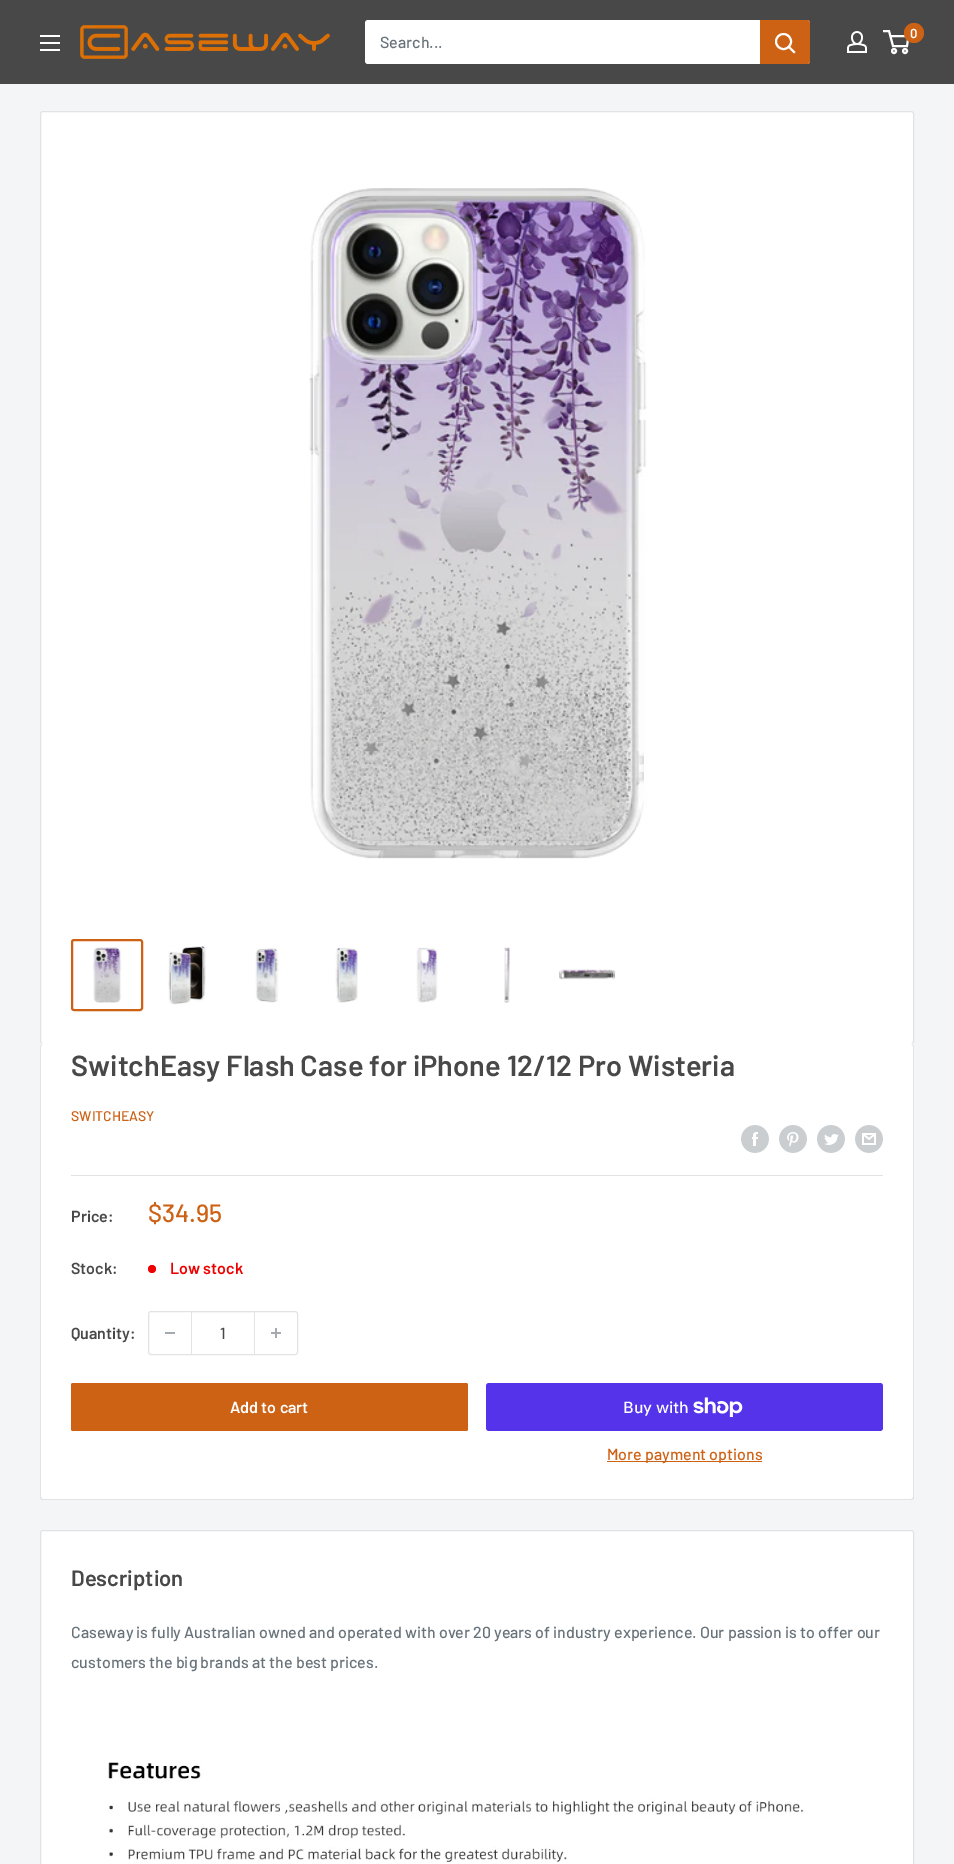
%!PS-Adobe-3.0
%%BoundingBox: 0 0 954 1864
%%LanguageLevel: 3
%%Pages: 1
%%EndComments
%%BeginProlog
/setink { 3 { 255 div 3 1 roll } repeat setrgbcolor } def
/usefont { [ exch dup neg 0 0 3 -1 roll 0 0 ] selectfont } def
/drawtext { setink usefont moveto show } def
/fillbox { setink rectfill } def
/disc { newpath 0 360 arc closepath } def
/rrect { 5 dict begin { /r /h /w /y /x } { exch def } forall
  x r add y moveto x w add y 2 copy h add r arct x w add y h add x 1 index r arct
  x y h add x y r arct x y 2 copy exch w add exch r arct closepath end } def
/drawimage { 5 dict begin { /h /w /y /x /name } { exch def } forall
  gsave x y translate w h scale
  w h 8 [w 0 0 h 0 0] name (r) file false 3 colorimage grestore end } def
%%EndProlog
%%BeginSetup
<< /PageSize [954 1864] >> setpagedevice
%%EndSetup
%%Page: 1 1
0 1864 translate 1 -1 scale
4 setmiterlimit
0 0 954 1864 243 245 246 fillbox
0 0 954 84 72 72 72 fillbox
(assets/img1.rgb) 80 25 250 34 drawimage
(assets/img2.rgb) 847 31 20 22 drawimage
255 255 255 setink
2 setlinewidth
894 51 2 disc stroke
905 51 2 disc stroke
890.5 36 moveto 908.5 36 lineto 907 46 lineto 893 46 lineto 889 31 lineto 883 31 lineto stroke
205 97 20 setink
914 33 10 disc fill
(0) 910 38 /Barlow-SemiBold 13 255 255 255 drawtext
(assets/img3.rgb) 40 35 20 16 drawimage
365 20 445 44 3 rrect fill
(Search...) 380 48 /Barlow-Medium 16 103 114 121 drawtext
205 97 20 setink
760 20 moveto 807 20 lineto 808.5 20 810 21.5 810 23 curveto 810 61 lineto 810 62.5 808.5 64 807 64 curveto 760 64 lineto closepath fill
255 255 255 setink
2 setlinecap
794 52 moveto 789 47 lineto stroke
0 setlinecap
783.5 41.5 7.5 disc stroke
40.5 111.5 873 932 2.5 rrect gsave fill grestore
225 227 228 setink
1 setlinewidth
stroke
(assets/img4.rgb) 309 188 338 671 drawimage
205 97 20 setink
2 setlinewidth
72 940 70 70 2 rrect stroke
(assets/img5.rgb) 93 947 29 56 drawimage
(assets/img6.rgb) 168 946 38 59 drawimage
(assets/img7.rgb) 255 947 24 56 drawimage
(assets/img8.rgb) 335 947 23 56 drawimage
(assets/img9.rgb) 416 947 22 56 drawimage
(assets/img10.rgb) 504 947 6 56 drawimage
(assets/img11.rgb) 559 969 57 11 drawimage
255 255 255 setink
43 1043 moveto 41 1043 40 1045 40 1047 curveto 40 1045 41 1044 43 1044 curveto 911 1044 lineto 913 1044 914 1045 914 1047 curveto 914 1045 913 1043 911 1043 curveto closepath fill
40 1044 874 456 3 rrect fill
225 227 228 setink
43 1044 moveto 911 1044 lineto 913 1044 914 1045 914 1047 curveto 914 1497 lineto 914 1499 913 1500 911 1500 curveto 43 1500 lineto 41 1500 40 1499 40 1497 curveto 40 1047 lineto 40 1045 41 1044 43 1044 curveto closepath 43 1044 moveto 911 1044 lineto 912 1044 913 1045 913 1047 curveto 913 1497 lineto 913 1498 912 1499 911 1499 curveto 43 1499 lineto 42 1499 41 1498 41 1497 curveto 41 1047 lineto 41 1045 42 1044 43 1044 curveto closepath eofill
(SwitchEasy Flash Case for iPhone 12/12 Pro Wisteria) 71 1076 /Barlow-SemiBold 29 72 72 72 drawtext
(SWITCHEASY) 71 1121 /Barlow-Medium 14 205 97 20 drawtext
(assets/img12.rgb) 741 1125 28 28 drawimage
(assets/img13.rgb) 779 1125 28 28 drawimage
(assets/img14.rgb) 817 1125 28 28 drawimage
(assets/img15.rgb) 855 1125 28 28 drawimage
71 1175 812 1 225 227 228 fillbox
(Price:) 71 1222 /Barlow-SemiBold 16 72 72 72 drawtext
($34.95) 148 1222 /Barlow-Medium 25 205 97 20 drawtext
(Stock:) 71 1274 /Barlow-SemiBold 16 72 72 72 drawtext
238 0 0 setink
152 1269 4 disc fill
(Low stock) 170 1274 /Barlow-SemiBold 16 238 0 0 drawtext
(Quantity:) 71 1339 /Barlow-SemiBold 16 72 72 72 drawtext
225 227 228 setink
1 setlinewidth
148.5 1311.5 149 43 2.5 rrect stroke
165 1332 10 2 164 170 175 fillbox
192 1312 62 1 243 244 244 fillbox
254 1312 1 42 225 227 228 fillbox
191 1312 1 42 225 227 228 fillbox
(1) 220 1339 /Barlow-Medium 16 72 72 72 drawtext
(assets/img16.rgb) 271 1328 10 10 drawimage
205 97 20 setink
71 1383 397 48 2 rrect fill
(Add to cart) 230 1413 /Barlow-SemiBold 16 255 255 255 drawtext
84 51 235 setink
486 1383 397 48 3 rrect fill
(Buy with) 623 1413 /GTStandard-Medium 16 255 255 255 drawtext
(assets/img17.rgb) 693 1397 50 20 drawimage
607 1461 155 1 205 97 20 fillbox
(More payment options) 607 1460 /Barlow-Medium 16 205 97 20 drawtext
255 255 255 setink
40.5 1530.5 873 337 2.5 rrect gsave fill grestore
225 227 228 setink
stroke
(Description) 71 1586 /Barlow-SemiBold 22 72 72 72 drawtext
(Caseway is fully Australian owned and operated with over 20 years of industry experience. Our passion is to offer our) 71 1638 /Barlow-Medium 16 103 114 121 drawtext
(customers the big brands at the best prices.) 71 1668 /Barlow-Medium 16 103 114 121 drawtext
(assets/img18.rgb) 107 1762 698 100 drawimage
showpage
%%EOF
